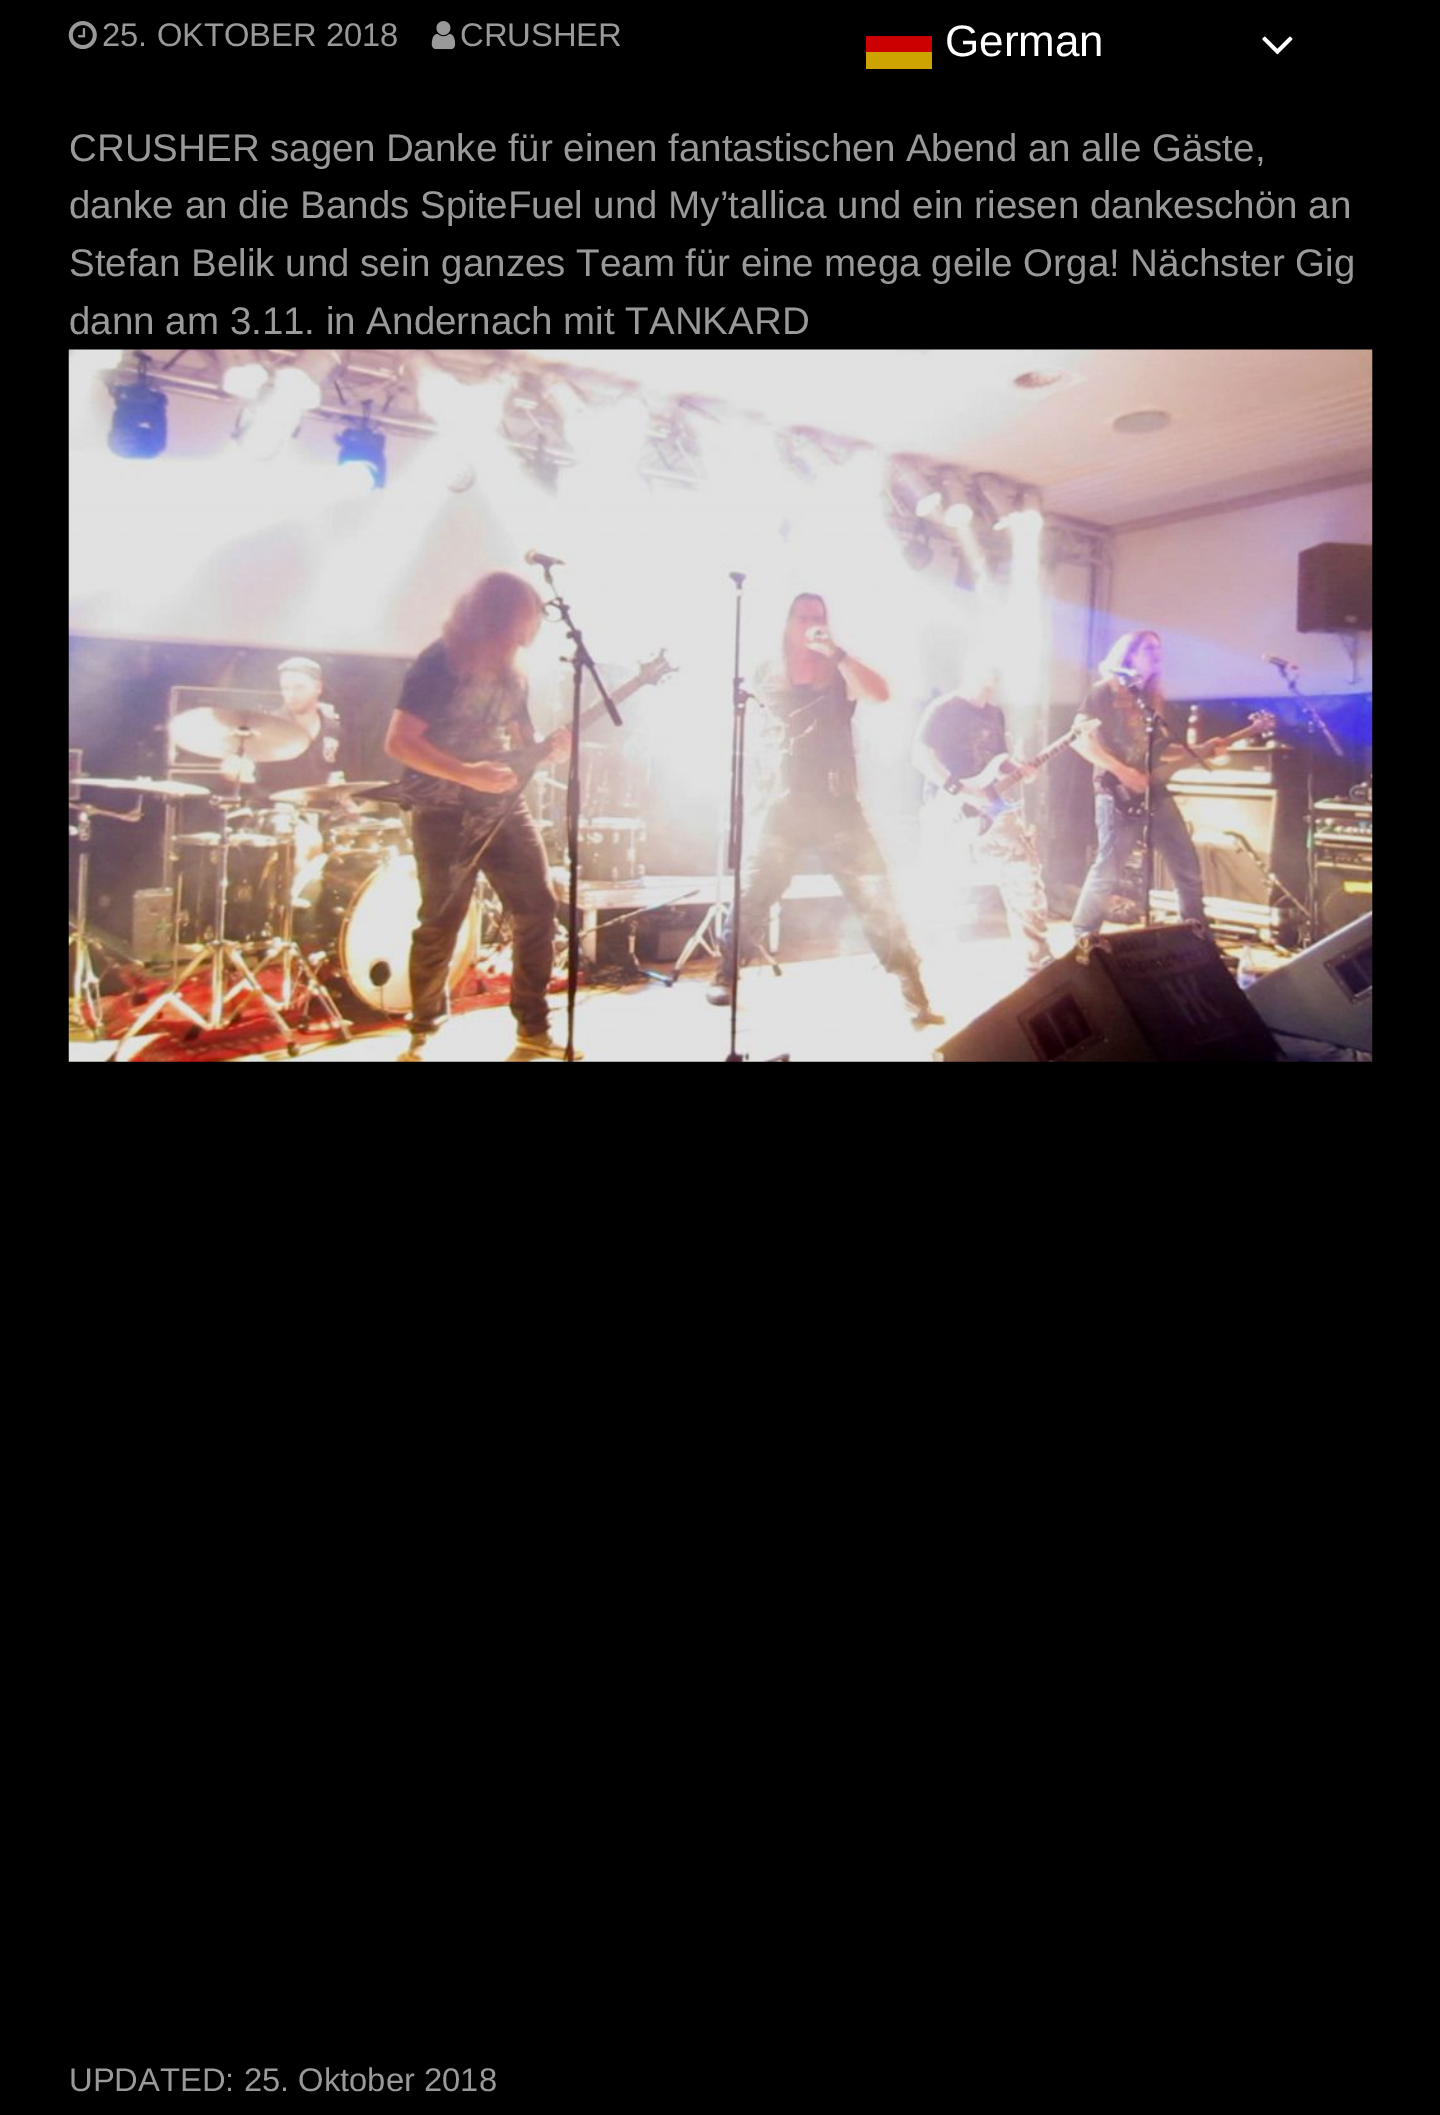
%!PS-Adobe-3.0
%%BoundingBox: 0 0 1440 2115
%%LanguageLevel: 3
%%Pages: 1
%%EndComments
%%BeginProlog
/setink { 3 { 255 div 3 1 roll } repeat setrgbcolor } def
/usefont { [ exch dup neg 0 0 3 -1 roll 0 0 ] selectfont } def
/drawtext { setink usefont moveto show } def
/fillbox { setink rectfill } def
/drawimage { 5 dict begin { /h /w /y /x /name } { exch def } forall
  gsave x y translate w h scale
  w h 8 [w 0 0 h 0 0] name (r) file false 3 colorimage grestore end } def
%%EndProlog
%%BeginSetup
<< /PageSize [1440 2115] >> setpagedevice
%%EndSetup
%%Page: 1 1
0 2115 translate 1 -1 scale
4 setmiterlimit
0 0 1440 2115 0 0 0 fillbox
(assets/img1.rgb) 68 21 29 29 drawimage
(25. OKTOBER 2018) 102 46 /LiberationSans-Regular 32.75 153 153 153 drawtext
(assets/img2.rgb) 431 21 25 29 drawimage
(CRUSHER) 460 46 /LiberationSans-Regular 32.75 153 153 153 drawtext
(CRUSHER sagen Danke für einen fantastischen Abend an alle Gäste,) 69 161 /LiberationSans-Regular 38.5 153 153 153 drawtext
(danke an die Bands SpiteFuel und My’tallica und ein riesen dankeschön an) 69 218 /LiberationSans-Regular 38.5 153 153 153 drawtext
(Stefan Belik und sein ganzes Team für eine mega geile Orga! Nächster Gig) 69 276 /LiberationSans-Regular 38.5 153 153 153 drawtext
(dann am 3.11. in Andernach mit TANKARD) 69 334 /LiberationSans-Regular 38.5 153 153 153 drawtext
(assets/img3.rgb) 68 349 1305 713 drawimage
(UPDATED: 25. Oktober 2018) 69 2091 /LiberationSans-Regular 32.75 153 153 153 drawtext
866 36 66 16 204 0 0 fillbox
(German) 945 56 /LiberationSans-Regular 44 255 255 255 drawtext
(assets/img4.rgb) 1262 36 31 19 drawimage
866 52 66 17 204 163 0 fillbox
showpage
%%EOF
